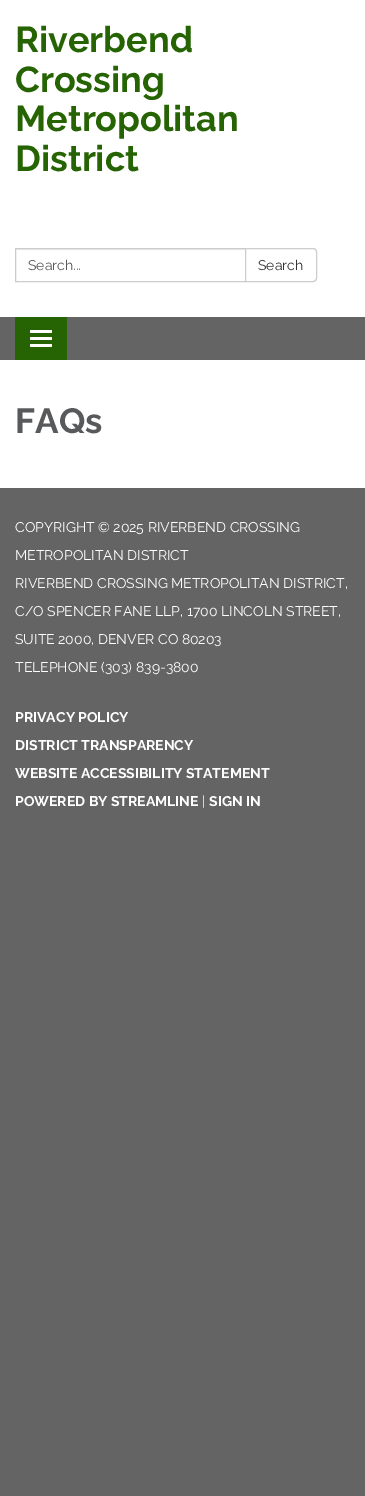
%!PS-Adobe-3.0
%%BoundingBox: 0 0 365 1496
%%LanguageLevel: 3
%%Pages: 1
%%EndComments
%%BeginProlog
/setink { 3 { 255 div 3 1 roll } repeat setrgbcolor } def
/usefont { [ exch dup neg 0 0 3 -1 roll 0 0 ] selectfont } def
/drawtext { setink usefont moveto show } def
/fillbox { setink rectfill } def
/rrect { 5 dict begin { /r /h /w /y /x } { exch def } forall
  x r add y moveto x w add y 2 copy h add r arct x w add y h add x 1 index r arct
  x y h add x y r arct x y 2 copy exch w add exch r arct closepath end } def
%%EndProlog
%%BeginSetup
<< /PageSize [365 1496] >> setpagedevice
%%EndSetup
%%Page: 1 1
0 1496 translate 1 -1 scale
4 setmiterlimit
0 0 365 1496 100 100 100 fillbox
0 0 365 317 255 255 255 fillbox
(Riverbend) 15 52 /Raleway-Bold 36 37 99 3 drawtext
(Crossing) 15 92 /Raleway-Bold 36 37 99 3 drawtext
(Metropolitan) 15 131 /Raleway-Bold 36 37 99 3 drawtext
(District) 15 171 /Raleway-Bold 36 37 99 3 drawtext
16 249 229 1 236 236 236 fillbox
204 204 204 setink
15.5 248.5 230 33 rectstroke
(Search...) 28 270 /Raleway-Regular 14 88 89 91 drawtext
255 255 255 setink
245.5 248.5 moveto 313 248.5 lineto 315 248.5 316.5 250 316.5 252 curveto 316.5 278 lineto 316.5 280 315 281.5 313 281.5 curveto 245.5 281.5 lineto closepath gsave fill grestore
204 204 204 setink
stroke
(Search) 258 270 /Raleway-Regular 14 51 51 51 drawtext
15 317 52 43 37 99 3 fillbox
255 255 255 setink
30 330 22 3 1 rrect fill
30 337 22 3 1 rrect fill
30 344 22 3 1 rrect fill
0 360 365 128 255 255 255 fillbox
(FAQs) 15 433 /Raleway-Bold 35 88 89 91 drawtext
(COPYRIGHT © 2025 RIVERBEND CROSSING) 15 532 /Raleway-Regular 14 255 255 255 drawtext
(METROPOLITAN DISTRICT) 15 560 /Raleway-Regular 14 255 255 255 drawtext
(RIVERBEND CROSSING METROPOLITAN DISTRICT,) 15 588 /Raleway-Regular 14 255 255 255 drawtext
(C/O SPENCER FANE LLP, 1700 LINCOLN STREET,) 15 616 /Raleway-Regular 14 255 255 255 drawtext
(SUITE 2000, DENVER CO 80203) 15 644 /Raleway-Regular 14 255 255 255 drawtext
(TELEPHONE \(303\) 839-3800) 15 672 /Raleway-Regular 14 255 255 255 drawtext
(PRIVACY POLICY) 15 722 /Raleway-Bold 14 255 255 255 drawtext
(DISTRICT TRANSPARENCY) 15 750 /Raleway-Bold 14 255 255 255 drawtext
(WEBSITE ACCESSIBILITY STATEMENT) 15 778 /Raleway-Bold 14 255 255 255 drawtext
(POWERED BY STREAMLINE) 15 806 /Raleway-Bold 14 255 255 255 drawtext
(|) 202 806 /Raleway-Regular 14 255 255 255 drawtext
(SIGN IN) 209 806 /Raleway-Bold 14 255 255 255 drawtext
showpage
%%EOF
